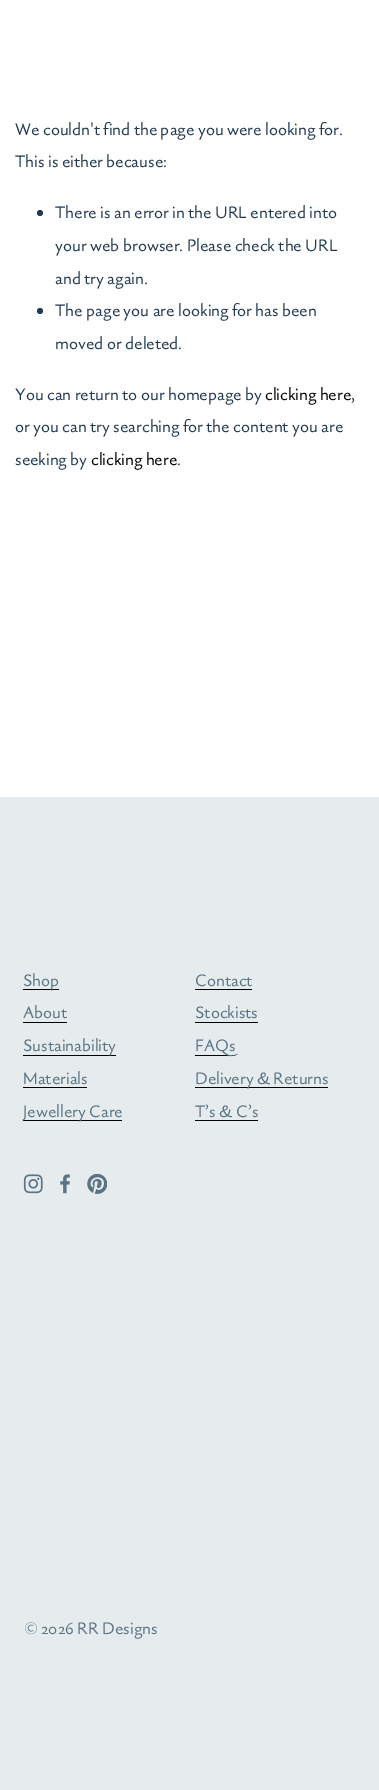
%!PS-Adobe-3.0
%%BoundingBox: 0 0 379 1790
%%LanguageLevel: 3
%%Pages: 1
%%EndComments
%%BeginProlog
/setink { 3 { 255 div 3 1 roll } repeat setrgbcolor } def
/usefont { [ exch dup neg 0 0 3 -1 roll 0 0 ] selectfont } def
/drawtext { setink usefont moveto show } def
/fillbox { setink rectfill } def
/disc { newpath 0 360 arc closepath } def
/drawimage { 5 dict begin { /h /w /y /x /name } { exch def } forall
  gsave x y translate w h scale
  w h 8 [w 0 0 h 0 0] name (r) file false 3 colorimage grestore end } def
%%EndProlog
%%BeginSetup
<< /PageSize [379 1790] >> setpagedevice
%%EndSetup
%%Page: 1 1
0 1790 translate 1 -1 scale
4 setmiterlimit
0 0 379 1790 255 255 255 fillbox
(We couldn't find the page you were looking for.) 15 135 /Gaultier-Regular 18.2 33 57 81 drawtext
(This is either because:) 15 167 /Gaultier-Regular 18.2 33 57 81 drawtext
40 213 3 disc fill
(There is an error in the URL entered into) 55 218 /Gaultier-Regular 18.2 33 57 81 drawtext
(your web browser. Please check the URL) 55 251 /Gaultier-Regular 18.2 33 57 81 drawtext
(and try again.) 55 284 /Gaultier-Regular 18.2 33 57 81 drawtext
40 311 3 disc fill
(The page you are looking for has been) 55 316 /Gaultier-Regular 18.2 33 57 81 drawtext
(moved or deleted.) 55 349 /Gaultier-Regular 18.2 33 57 81 drawtext
(You can return to our homepage by) 15 400 /Gaultier-Regular 18.2 33 57 81 drawtext
(clicking here) 265 400 /Gaultier-Regular 18.2 0 0 0 drawtext
(,) 351 400 /Gaultier-Regular 18.2 33 57 81 drawtext
(or you can try searching for the content you are) 15 432 /Gaultier-Regular 18.2 33 57 81 drawtext
(seeking by) 15 465 /Gaultier-Regular 18.2 33 57 81 drawtext
(clicking here) 91 465 /Gaultier-Regular 18.2 0 0 0 drawtext
(.) 177 465 /Gaultier-Regular 18.2 33 57 81 drawtext
0 797 379 993 230 235 238 fillbox
23 989 36 1 0 0 0 fillbox
(Shop) 23 986 /Gaultier-Regular 18.2 90 116 131 drawtext
(About) 23 1018 /Gaultier-Regular 18.2 90 116 131 drawtext
23 1022 44 1 0 0 0 fillbox
23 1055 93 1 0 0 0 fillbox
(Sustainability) 23 1051 /Gaultier-Regular 18.2 90 116 131 drawtext
(Materials) 23 1084 /Gaultier-Regular 18.2 90 116 131 drawtext
23 1087 64 1 0 0 0 fillbox
23 1120 99 1 0 0 0 fillbox
(Jewellery Care) 23 1117 /Gaultier-Regular 18.2 90 116 131 drawtext
(Contact) 195 986 /Gaultier-Regular 18.2 90 116 131 drawtext
195 989 57 1 0 0 0 fillbox
(Stockists) 195 1018 /Gaultier-Regular 18.2 90 116 131 drawtext
195 1022 63 1 0 0 0 fillbox
195 1055 40 1 0 0 0 fillbox
(FAQs) 195 1051 /Gaultier-Regular 18.2 90 116 131 drawtext
195 1087 133 1 0 0 0 fillbox
(Delivery & Returns) 195 1084 /Gaultier-Regular 18.2 90 116 131 drawtext
(T’s & C’s) 195 1117 /Gaultier-Regular 18.2 90 116 131 drawtext
195 1120 63 1 0 0 0 fillbox
(assets/img1.rgb) 23 1174 20 20 drawimage
(assets/img2.rgb) 60 1174 10 20 drawimage
(assets/img3.rgb) 87 1174 20 20 drawimage
(©) 23 1634 /Gaultier-Italic 18.2 90 116 131 drawtext
(2026 RR Designs) 41 1634 /Gaultier-Regular 18.2 90 116 131 drawtext
showpage
%%EOF
